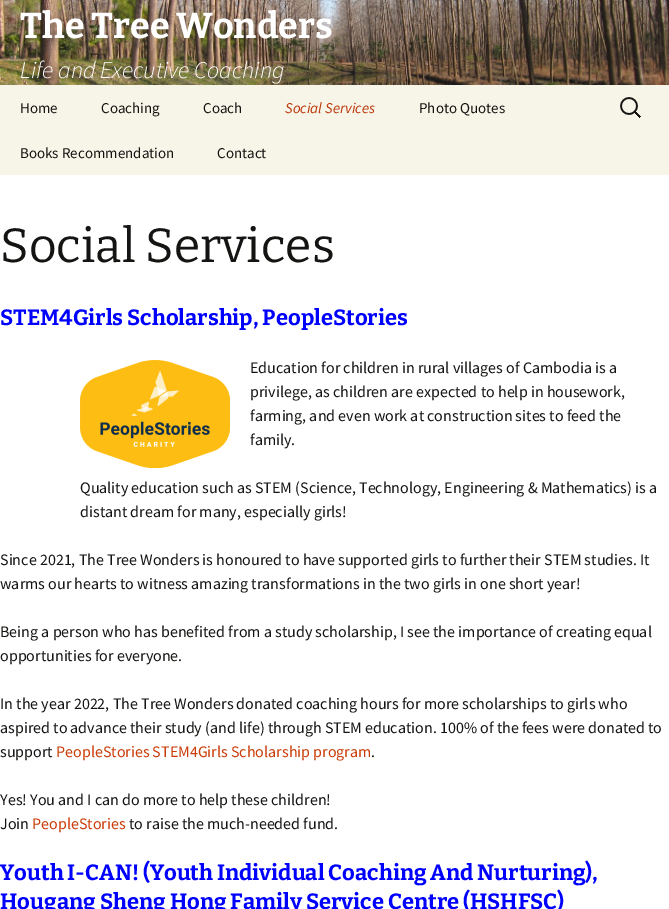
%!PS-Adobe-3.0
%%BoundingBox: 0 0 669 909
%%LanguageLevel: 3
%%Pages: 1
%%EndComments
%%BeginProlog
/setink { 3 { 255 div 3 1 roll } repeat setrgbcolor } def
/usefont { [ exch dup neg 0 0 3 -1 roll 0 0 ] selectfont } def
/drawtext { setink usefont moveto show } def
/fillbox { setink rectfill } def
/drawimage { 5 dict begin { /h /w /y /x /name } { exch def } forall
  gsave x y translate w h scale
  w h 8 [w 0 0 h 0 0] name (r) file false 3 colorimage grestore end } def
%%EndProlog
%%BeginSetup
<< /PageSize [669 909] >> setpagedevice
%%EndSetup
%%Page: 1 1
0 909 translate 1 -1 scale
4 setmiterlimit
0 0 669 909 255 255 255 fillbox
(assets/img1.rgb) 0 0 669 85 drawimage
(The Tree Wonders) 20 38 /Bitter-Thin 36 255 255 255 drawtext
(Life and Executive Coaching) 20 78 /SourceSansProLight-LightItalic 24 255 255 255 drawtext
0 85 669 90 247 245 231 fillbox
(Home) 20 113 /SourceSansPro-Regular 15 20 20 18 drawtext
(Coaching) 101 113 /SourceSansPro-Regular 15 20 20 18 drawtext
(Coach) 203 113 /SourceSansPro-Regular 15 20 20 18 drawtext
(Social Services) 285 113 /SourceSansPro-Italic 15 188 54 10 drawtext
(Photo Quotes) 419 113 /SourceSansPro-Regular 15 20 20 18 drawtext
(Books Recommendation) 20 158 /SourceSansPro-Regular 15 20 20 18 drawtext
(Contact) 217 158 /SourceSansPro-Regular 15 20 20 18 drawtext
(assets/img2.rgb) 620 97 21 21 drawimage
(Social Services) 0 262 /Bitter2-Thin 48 20 20 18 drawtext
(STEM4Girls Scholarship, PeopleStories) 0 325 /Bitter-Thin 22 0 0 255 drawtext
(assets/img3.rgb) 80 360 150 108 drawimage
(Education for children in rural villages of Cambodia is a) 250 373 /SourceSansPro-Regular 16 20 20 18 drawtext
(privilege, as children are expected to help in housework,) 250 397 /SourceSansPro-Regular 16 20 20 18 drawtext
(farming, and even work at construction sites to feed the) 250 421 /SourceSansPro-Regular 16 20 20 18 drawtext
(family.) 250 445 /SourceSansPro-Regular 16 20 20 18 drawtext
(Quality education such as STEM \(Science, Technology, Engineering & Mathematics\) is a) 80 493 /SourceSansPro-Regular 16 20 20 18 drawtext
(distant dream for many, especially girls!) 80 517 /SourceSansPro-Regular 16 20 20 18 drawtext
(Since 2021, The Tree Wonders is honoured to have supported girls to further their STEM studies. It) 0 565 /SourceSansPro-Regular 16 20 20 18 drawtext
(warms our hearts to witness amazing transformations in the two girls in one short year!) 0 589 /SourceSansPro-Regular 16 20 20 18 drawtext
(Being a person who has benefited from a study scholarship, I see the importance of creating equal) 0 637 /SourceSansPro-Regular 16 20 20 18 drawtext
(opportunities for everyone.) 0 661 /SourceSansPro-Regular 16 20 20 18 drawtext
(In the year 2022, The Tree Wonders donated coaching hours for more scholarships to girls who) 0 709 /SourceSansPro-Regular 16 20 20 18 drawtext
(aspired to advance their study \(and life\) through STEM education. 100% of the fees were donated to) 0 733 /SourceSansPro-Regular 16 20 20 18 drawtext
(support) 0 757 /SourceSansPro-Regular 16 20 20 18 drawtext
(PeopleStories STEM4Girls Scholarship program) 56 757 /SourceSansPro-Regular 16 202 60 8 drawtext
(.) 371 757 /SourceSansPro-Regular 16 20 20 18 drawtext
(Yes! You and I can do more to help these children!) 0 805 /SourceSansPro-Regular 16 20 20 18 drawtext
(Join) 0 829 /SourceSansPro-Regular 16 20 20 18 drawtext
(PeopleStories) 32 829 /SourceSansPro-Regular 16 202 60 8 drawtext
(to raise the much-needed fund.) 129 829 /SourceSansPro-Regular 16 20 20 18 drawtext
(Youth I-CAN! \(Youth Individual Coaching And Nurturing\),) 0 880 /Bitter-Thin 22 0 0 255 drawtext
(Hougang Sheng Hong Family Service Centre \(HSHFSC\)) 0 909 /Bitter-Thin 22 0 0 255 drawtext
showpage
%%EOF
